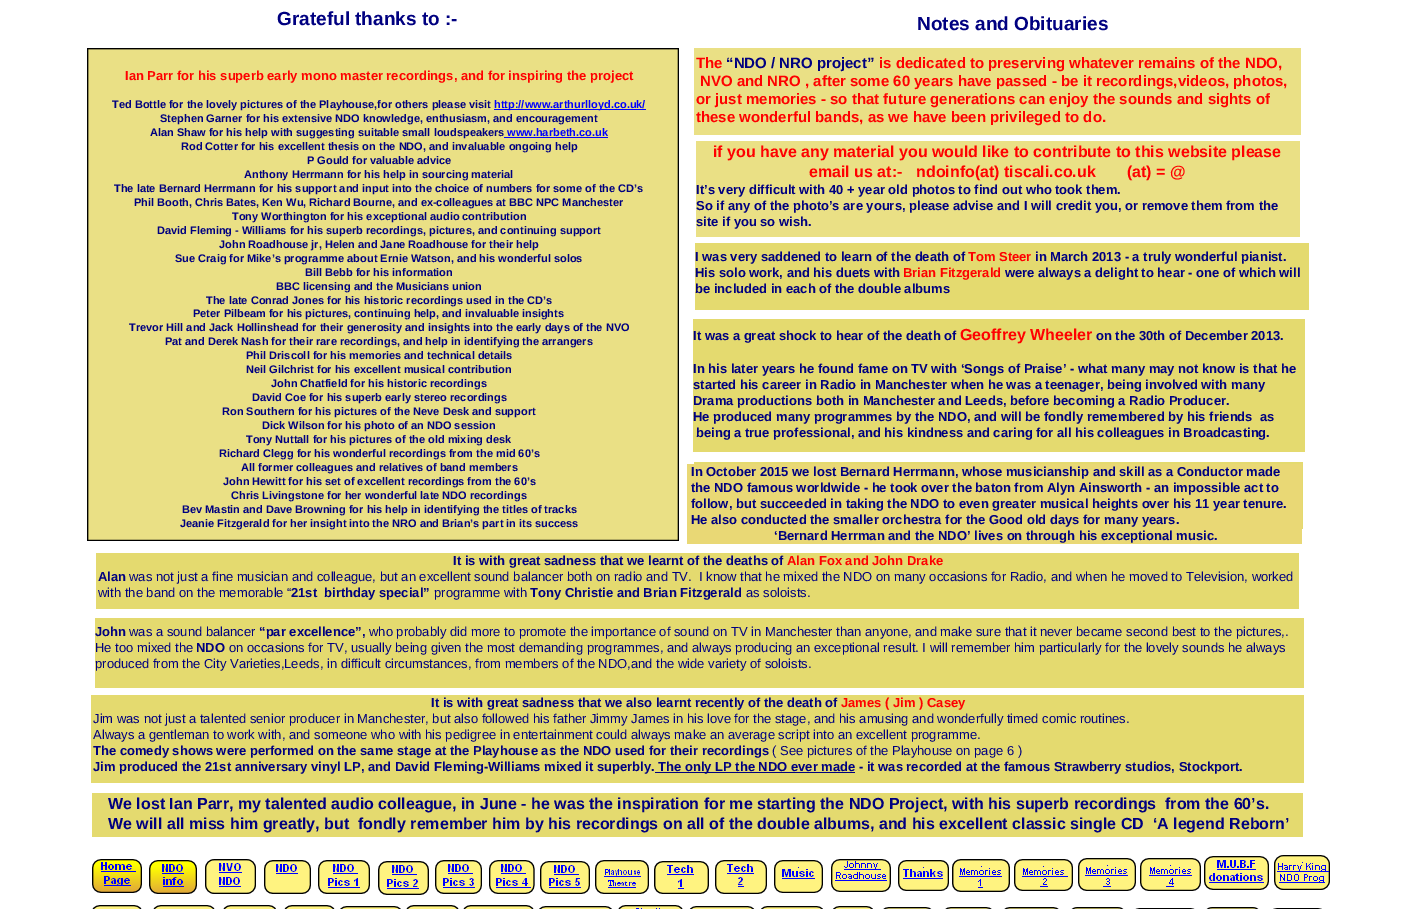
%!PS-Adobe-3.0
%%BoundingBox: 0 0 1413 909
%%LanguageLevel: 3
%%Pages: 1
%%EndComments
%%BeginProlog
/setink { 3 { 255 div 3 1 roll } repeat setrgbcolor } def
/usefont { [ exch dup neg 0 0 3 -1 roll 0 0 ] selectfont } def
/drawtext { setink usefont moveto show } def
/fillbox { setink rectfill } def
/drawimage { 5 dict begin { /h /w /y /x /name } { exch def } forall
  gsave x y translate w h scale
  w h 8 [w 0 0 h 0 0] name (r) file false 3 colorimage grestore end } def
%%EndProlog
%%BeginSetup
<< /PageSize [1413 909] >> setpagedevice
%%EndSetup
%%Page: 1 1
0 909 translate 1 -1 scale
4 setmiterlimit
0 0 1413 909 255 255 255 fillbox
(Grateful thanks to :-) 277 25 /LiberationSans-Bold 19 0 0 128 drawtext
(Notes and Obituaries) 917 30 /LiberationSans-Bold 19 0 0 128 drawtext
(assets/img1.rgb) 87 48 592 493 drawimage
694 48 607 87 234 224 133 fillbox
(Ian Parr for his superb early mono master recordings, and for inspiring the project) 125 80 /LiberationSans-Bold 13 255 0 0 drawtext
(Ted Bottle for the lovely pictures of the Playhouse,for others please visit) 112 108 /LiberationSans-Bold 11 0 0 128 drawtext
494 109 152 1 0 0 255 fillbox
(http://www.arthurlloyd.co.uk/) 494 108 /LiberationSans-Bold 11 0 0 255 drawtext
(Stephen Garner for his extensive NDO knowledge, enthusiasm, and encouragement) 160 122 /LiberationSans-Bold 11 0 0 128 drawtext
(Alan Shaw for his help with suggesting suitable small loudspeakers) 150 136 /LiberationSans-Bold 11 0 0 128 drawtext
504 137 104 1 0 0 255 fillbox
(www.harbeth.co.uk) 507 136 /LiberationSans-Bold 11 0 0 255 drawtext
(Rod Cotter for his excellent thesis on the NDO, and invaluable ongoing help) 181 150 /LiberationSans-Bold 11 0 0 128 drawtext
(P Gould for valuable advice) 307 164 /LiberationSans-Bold 11 0 0 128 drawtext
(Anthony Herrmann for his help in sourcing material) 244 178 /LiberationSans-Bold 11 0 0 128 drawtext
(The late Bernard Herrmann for his support and input into the choice of numbers for some of the CD’s) 114 192 /LiberationSans-Bold 11 0 0 128 drawtext
(Phil Booth, Chris Bates, Ken Wu, Richard Bourne, and ex-colleagues at BBC NPC Manchester) 134 206 /LiberationSans-Bold 11 0 0 128 drawtext
(Tony Worthington for his exceptional audio contribution) 232 220 /LiberationSans-Bold 11 0 0 128 drawtext
(David Fleming - Williams for his superb recordings, pictures, and continuing support) 157 234 /LiberationSans-Bold 11 0 0 128 drawtext
(John Roadhouse jr, Helen and Jane Roadhouse for their help) 219 248 /LiberationSans-Bold 11 0 0 128 drawtext
(Sue Craig for Mike’s programme about Ernie Watson, and his wonderful solos) 175 262 /LiberationSans-Bold 11 0 0 128 drawtext
(Bill Bebb for his information) 305 276 /LiberationSans-Bold 11 0 0 128 drawtext
(BBC licensing and the Musicians union) 276 290 /LiberationSans-Bold 11 0 0 128 drawtext
(The late Conrad Jones for his historic recordings used in the CD’s) 206 304 /LiberationSans-Bold 11 0 0 128 drawtext
(Peter Pilbeam for his pictures, continuing help, and invaluable insights) 193 317 /LiberationSans-Bold 11 0 0 128 drawtext
(Trevor Hill and Jack Hollinshead for their generosity and insights into the early days of the NVO) 129 331 /LiberationSans-Bold 11 0 0 128 drawtext
(Pat and Derek Nash for their rare recordings, and help in identifying the arrangers) 165 345 /LiberationSans-Bold 11 0 0 128 drawtext
(Phil Driscoll for his memories and technical details) 246 359 /LiberationSans-Bold 11 0 0 128 drawtext
(Neil Gilchrist for his excellent musical contribution) 246 373 /LiberationSans-Bold 11 0 0 128 drawtext
(John Chatfield for his historic recordings) 271 387 /LiberationSans-Bold 11 0 0 128 drawtext
(David Coe for his superb early stereo recordings) 252 401 /LiberationSans-Bold 11 0 0 128 drawtext
(Ron Southern for his pictures of the Neve Desk and support) 222 415 /LiberationSans-Bold 11 0 0 128 drawtext
(Dick Wilson for his photo of an NDO session) 262 429 /LiberationSans-Bold 11 0 0 128 drawtext
(Tony Nuttall for his pictures of the old mixing desk) 246 443 /LiberationSans-Bold 11 0 0 128 drawtext
(Richard Clegg for his wonderful recordings from the mid 60’s) 219 457 /LiberationSans-Bold 11 0 0 128 drawtext
(All former colleagues and relatives of band members) 241 471 /LiberationSans-Bold 11 0 0 128 drawtext
(John Hewitt for his set of excellent recordings from the 60’s) 223 485 /LiberationSans-Bold 11 0 0 128 drawtext
(Chris Livingstone for her wonderful late NDO recordings) 231 499 /LiberationSans-Bold 11 0 0 128 drawtext
(Bev Mastin and Dave Browning for his help in identifying the titles of tracks) 182 513 /LiberationSans-Bold 11 0 0 128 drawtext
(Jeanie Fitzgerald for her insight into the NRO and Brian’s part in its success) 180 527 /LiberationSans-Bold 11 0 0 128 drawtext
(The) 696 68 /LiberationSans-Bold 15 255 0 0 drawtext
(“NDO / NRO project”) 726 68 /LiberationSans-Bold 15 0 0 128 drawtext
(is dedicated to preserving whatever remains of the NDO,) 879 68 /LiberationSans-Bold 15 255 0 0 drawtext
(NVO and NRO , after some 60 years have passed - be it recordings,videos, photos,) 700 86 /LiberationSans-Bold 15 255 0 0 drawtext
(or just memories - so that future generations can enjoy the sounds and sights of) 696 104 /LiberationSans-Bold 15 255 0 0 drawtext
(these wonderful bands, as we have been privileged to do.) 696 122 /LiberationSans-Bold 15 255 0 0 drawtext
696 141 604 96 234 224 133 fillbox
(if you have any material you would like to contribute to this website please) 713 157 /LiberationSans-Bold 16 255 0 0 drawtext
(email us at:-) 809 177 /LiberationSans-Bold 16 255 0 0 drawtext
(ndoinfo\(at\) tiscali.co.uk       \(at\) = @) 916 177 /LiberationSans-Bold 16 255 0 0 drawtext
(It’s very difficult with 40 + year old photos to find out who took them.) 696 194 /LiberationSans-Bold 13 0 0 128 drawtext
(So if any of the photo’s are yours, please advise and I will credit you, or remove them from the) 696 210 /LiberationSans-Bold 13 0 0 128 drawtext
(site if you so wish.) 696 226 /LiberationSans-Bold 13 0 0 128 drawtext
695 243 614 67 228 218 111 fillbox
(I was very saddened to learn of the death of) 695 261 /LiberationSans-Bold 13 0 0 128 drawtext
(Tom Steer) 968 261 /LiberationSans-Bold 13 255 0 0 drawtext
(in March 2013 - a truly wonderful pianist.) 1035 261 /LiberationSans-Bold 13 0 0 128 drawtext
(His solo work, and his duets with) 695 277 /LiberationSans-Bold 13 0 0 128 drawtext
(Brian Fitzgerald) 903 277 /LiberationSans-Bold 13 255 0 0 drawtext
(were always a delight to hear - one of which will) 1005 277 /LiberationSans-Bold 13 0 0 128 drawtext
(be included in each of the double albums) 695 293 /LiberationSans-Bold 13 0 0 128 drawtext
693 319 612 133 228 218 111 fillbox
(It was a great shock to hear of the death of) 693 340 /LiberationSans-Bold 13 0 0 128 drawtext
(Geoffrey Wheeler) 960 340 /LiberationSans-Bold 16 255 0 0 drawtext
(on the 30th of December 2013.) 1096 340 /LiberationSans-Bold 13 0 0 128 drawtext
(In his later years he found fame on TV with ‘Songs of Praise’ - what many may not know is that he) 693 373 /LiberationSans-Bold 13 0 0 128 drawtext
(started his career in Radio in Manchester when he was a teenager, being involved with many) 693 389 /LiberationSans-Bold 13 0 0 128 drawtext
(Drama productions both in Manchester and Leeds, before becoming a Radio Producer.) 693 405 /LiberationSans-Bold 13 0 0 128 drawtext
(He produced many programmes by the NDO, and will be fondly remembered by his friends  as) 693 421 /LiberationSans-Bold 13 0 0 128 drawtext
(being a true professional, and his kindness and caring for all his colleagues in Broadcasting.) 696 437 /LiberationSans-Bold 13 0 0 128 drawtext
694 462 609 67 228 218 111 fillbox
687 464 615 80 233 216 117 fillbox
(In October 2015 we lost Bernard Herrmann, whose musicianship and skill as a Conductor made) 691 476 /LiberationSans-Bold 13 0 0 128 drawtext
(the NDO famous worldwide - he took over the baton from Alyn Ainsworth - an impossible act to) 691 492 /LiberationSans-Bold 13 0 0 128 drawtext
(follow, but succeeded in taking the NDO to even greater musical heights over his 11 year tenure.) 691 508 /LiberationSans-Bold 13 0 0 128 drawtext
(He also conducted the smaller orchestra for the Good old days for many years.) 691 524 /LiberationSans-Bold 13 0 0 128 drawtext
(‘Bernard Herrman and the NDO’ lives on through his exceptional music.) 774 540 /LiberationSans-Bold 13 0 0 128 drawtext
96 553 1203 56 228 218 111 fillbox
(It is with great sadness that we learnt of the deaths of) 453 565 /LiberationSans-Bold 13 0 0 128 drawtext
(Alan Fox and John Drake) 787 565 /LiberationSans-Bold 13 255 0 0 drawtext
(Alan) 98 581 /LiberationSans-Bold 13 0 0 128 drawtext
(was not just a fine musician and colleague, but an excellent sound balancer both on radio and TV.  I know that he mixed the NDO on many occasions for Radio, and when he moved to Television, worked) 129 581 /LiberationSans-Regular 13 0 0 128 drawtext
(with the band on the memorable “) 98 597 /LiberationSans-Regular 13 0 0 128 drawtext
(21st  birthday special”) 291 597 /LiberationSans-Bold 13 0 0 128 drawtext
(programme with) 434 597 /LiberationSans-Regular 13 0 0 128 drawtext
(Tony Christie and Brian Fitzgerald) 530 597 /LiberationSans-Bold 13 0 0 128 drawtext
(as soloists.) 746 597 /LiberationSans-Regular 13 0 0 128 drawtext
95 618 1209 70 228 218 111 fillbox
(John) 95 636 /LiberationSans-Bold 13 0 0 128 drawtext
(was a sound balancer) 129 636 /LiberationSans-Regular 13 0 0 128 drawtext
(“par excellence”,) 259 636 /LiberationSans-Bold 13 0 0 128 drawtext
(who probably did more to promote the importance of sound on TV in Manchester than anyone, and make sure that it never became second best to the pictures,.) 369 636 /LiberationSans-Regular 13 0 0 128 drawtext
(He too mixed the) 95 652 /LiberationSans-Regular 13 0 0 128 drawtext
(NDO) 196 652 /LiberationSans-Bold 13 0 0 128 drawtext
(on occasions for TV, usually being given the most demanding programmes, and always producing an exceptional result. I will remember him particularly for the lovely sounds he always) 229 652 /LiberationSans-Regular 13 0 0 128 drawtext
(produced from the City Varieties,Leeds, in difficult circumstances, from members of the NDO,and the wide variety of soloists.) 95 668 /LiberationSans-Regular 13 0 0 128 drawtext
91 695 1213 88 228 218 111 fillbox
(It is with great sadness that we also learnt recently of the death of) 431 707 /LiberationSans-Bold 13 0 0 128 drawtext
(James \( Jim \) Casey) 841 707 /LiberationSans-Bold 13 255 0 0 drawtext
(Jim was not just a talented senior producer in Manchester, but also followed his father Jimmy James in his love for the stage, and his amusing and wonderfully timed comic routines.) 93 723 /LiberationSans-Regular 13 0 0 128 drawtext
(Always a gentleman to work with, and someone who with his pedigree in entertainment could always make an average script into an excellent programme.) 93 739 /LiberationSans-Regular 13 0 0 128 drawtext
(The comedy shows were performed on the same stage at the Playhouse as the NDO used for their recordings) 93 755 /LiberationSans-Bold 13 0 0 128 drawtext
(\( See pictures of the Playhouse on page 6 \)) 772 755 /LiberationSans-Regular 13 0 0 128 drawtext
(Jim produced the 21st anniversary vinyl LP, and David Fleming-Williams mixed it superbly.) 93 771 /LiberationSans-Bold 13 0 0 128 drawtext
655 772 200 1 0 0 128 fillbox
(The only LP the NDO ever made - it was recorded at the famous Strawberry studios, Stockport.) 658 771 /LiberationSans-Bold 13 0 0 128 drawtext
92 793 1211 44 228 218 111 fillbox
(We lost Ian Parr, my talented audio colleague, in June - he was the inspiration for me starting the NDO Project, with his superb recordings  from the 60’s.) 108 809 /LiberationSans-Bold 16 0 0 128 drawtext
(We will all miss him greatly, but  fondly remember him by his recordings on all of the double albums, and his excellent classic single CD  ‘A legend Reborn’) 108 829 /LiberationSans-Bold 16 0 0 128 drawtext
(assets/img2.rgb) 92 859 50 34 drawimage
(assets/img3.rgb) 149 860 48 34 drawimage
(assets/img4.rgb) 205 859 51 35 drawimage
(assets/img5.rgb) 264 860 47 34 drawimage
(assets/img6.rgb) 318 860 52 34 drawimage
(assets/img7.rgb) 378 861 51 34 drawimage
(assets/img8.rgb) 435 860 47 34 drawimage
(assets/img9.rgb) 489 860 46 34 drawimage
(assets/img10.rgb) 540 861 50 33 drawimage
(assets/img11.rgb) 595 860 54 34 drawimage
(assets/img12.rgb) 654 861 55 33 drawimage
(assets/img13.rgb) 715 860 52 34 drawimage
(assets/img14.rgb) 774 860 49 33 drawimage
(assets/img15.rgb) 831 859 60 33 drawimage
(assets/img16.rgb) 898 860 51 31 drawimage
(assets/img17.rgb) 952 859 58 33 drawimage
(assets/img18.rgb) 1014 859 59 32 drawimage
(assets/img19.rgb) 1078 858 58 33 drawimage
(assets/img20.rgb) 1140 858 61 33 drawimage
(assets/img21.rgb) 1204 856 65 34 drawimage
(assets/img22.rgb) 1274 855 56 35 drawimage
(assets/img23.rgb) 92 905 50 4 drawimage
(assets/img24.rgb) 153 905 62 4 drawimage
(assets/img25.rgb) 223 905 53 4 drawimage
(assets/img26.rgb) 284 905 51 4 drawimage
(assets/img27.rgb) 340 906 61 3 drawimage
(assets/img28.rgb) 406 905 53 4 drawimage
(assets/img29.rgb) 463 905 71 4 drawimage
(assets/img30.rgb) 539 906 73 3 drawimage
(assets/img31.rgb) 618 905 65 4 drawimage
(assets/img32.rgb) 689 906 66 3 drawimage
(assets/img33.rgb) 761 906 62 3 drawimage
(assets/img34.rgb) 833 906 40 3 drawimage
(assets/img35.rgb) 883 907 49 2 drawimage
(assets/img36.rgb) 945 907 47 2 drawimage
(assets/img37.rgb) 1004 907 55 2 drawimage
(assets/img38.rgb) 1071 907 53 2 drawimage
(assets/img39.rgb) 1135 908 60 1 drawimage
(assets/img38.rgb) 1206 907 53 2 drawimage
(assets/img40.rgb) 1273 908 49 1 drawimage
showpage
%%EOF
